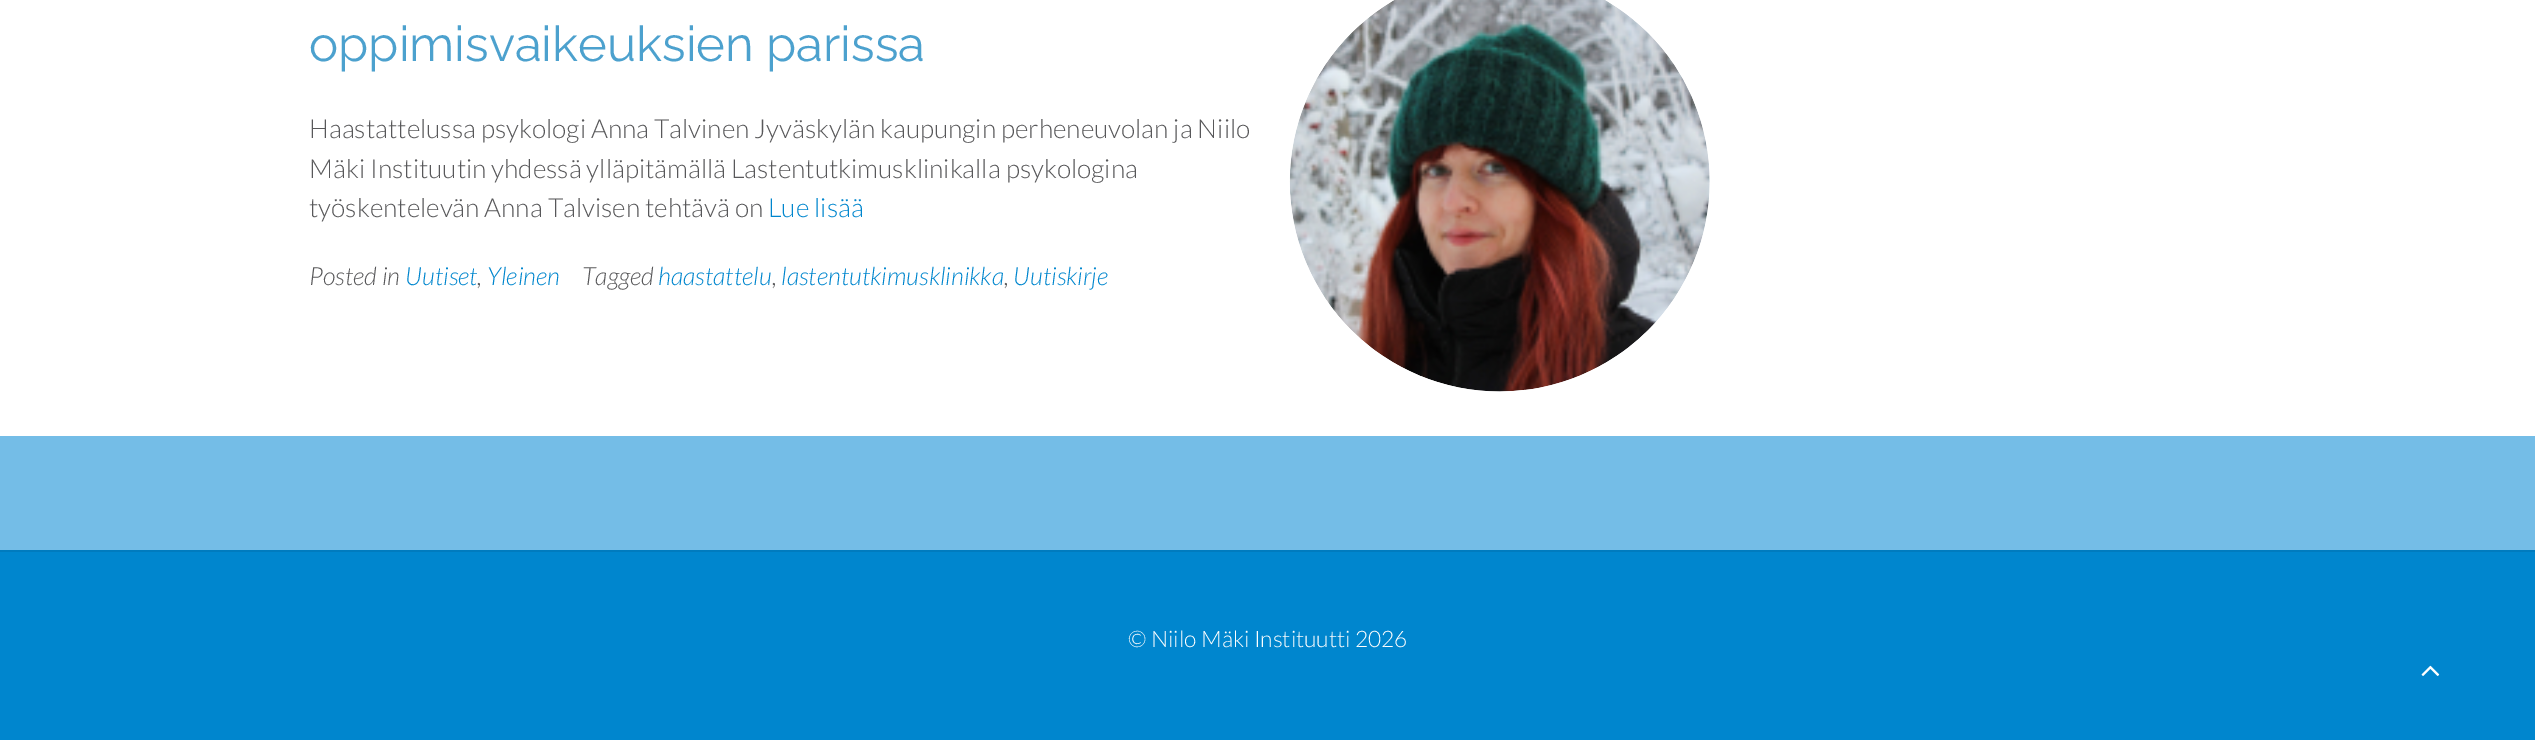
%!PS-Adobe-3.0
%%BoundingBox: 0 0 2535 740
%%LanguageLevel: 3
%%Pages: 1
%%EndComments
%%BeginProlog
/setink { 3 { 255 div 3 1 roll } repeat setrgbcolor } def
/usefont { [ exch dup neg 0 0 3 -1 roll 0 0 ] selectfont } def
/drawtext { setink usefont moveto show } def
/fillbox { setink rectfill } def
/drawimage { 5 dict begin { /h /w /y /x /name } { exch def } forall
  gsave x y translate w h scale
  w h 8 [w 0 0 h 0 0] name (r) file false 3 colorimage grestore end } def
%%EndProlog
%%BeginSetup
<< /PageSize [2535 740] >> setpagedevice
%%EndSetup
%%Page: 1 1
0 740 translate 1 -1 scale
4 setmiterlimit
0 0 2535 740 255 255 255 fillbox
(oppimisvaikeuksien parissa) 309 61 /Raleway-Regular 49 76 161 206 drawtext
(Haastattelussa psykologi Anna Talvinen Jyväskylän kaupungin perheneuvolan ja Niilo) 309 138 /Lato-Light 26.25 88 88 90 drawtext
(Mäki Instituutin yhdessä ylläpitämällä Lastentutkimusklinikalla psykologina) 309 178 /Lato-Light 26.25 88 88 90 drawtext
(työskentelevän Anna Talvisen tehtävä on) 309 217 /Lato-Light 26.25 88 88 90 drawtext
(Lue lisää) 768 217 /Lato-Light 26.25 0 134 206 drawtext
(Posted in) 309 285 /Lato-LightItalic 25 88 88 90 drawtext
(Uutiset) 405 285 /Lato-LightItalic 25 0 134 206 drawtext
(,) 477 285 /Lato-LightItalic 25 88 88 90 drawtext
(Yleinen) 487 285 /Lato-LightItalic 25 0 134 206 drawtext
(Tagged) 582 285 /Lato-LightItalic 25 88 88 90 drawtext
(haastattelu) 658 285 /Lato-LightItalic 25 0 134 206 drawtext
(,) 772 285 /Lato-LightItalic 25 88 88 90 drawtext
(lastentutkimusklinikka) 781 285 /Lato-LightItalic 25 0 134 206 drawtext
(,) 1004 285 /Lato-LightItalic 25 88 88 90 drawtext
(Uutiskirje) 1013 285 /Lato-LightItalic 25 0 134 206 drawtext
(assets/img1.rgb) 1289 0 421 392 drawimage
0 436 2535 114 116 189 231 fillbox
0 552 2535 188 0 134 206 fillbox
0 550 2535 2 0 123 190 fillbox
(© Niilo Mäki Instituutti 2026) 1128 647 /Lato-Light 22.75 255 255 255 drawtext
(assets/img2.rgb) 2421 665 19 11 drawimage
showpage
%%EOF
